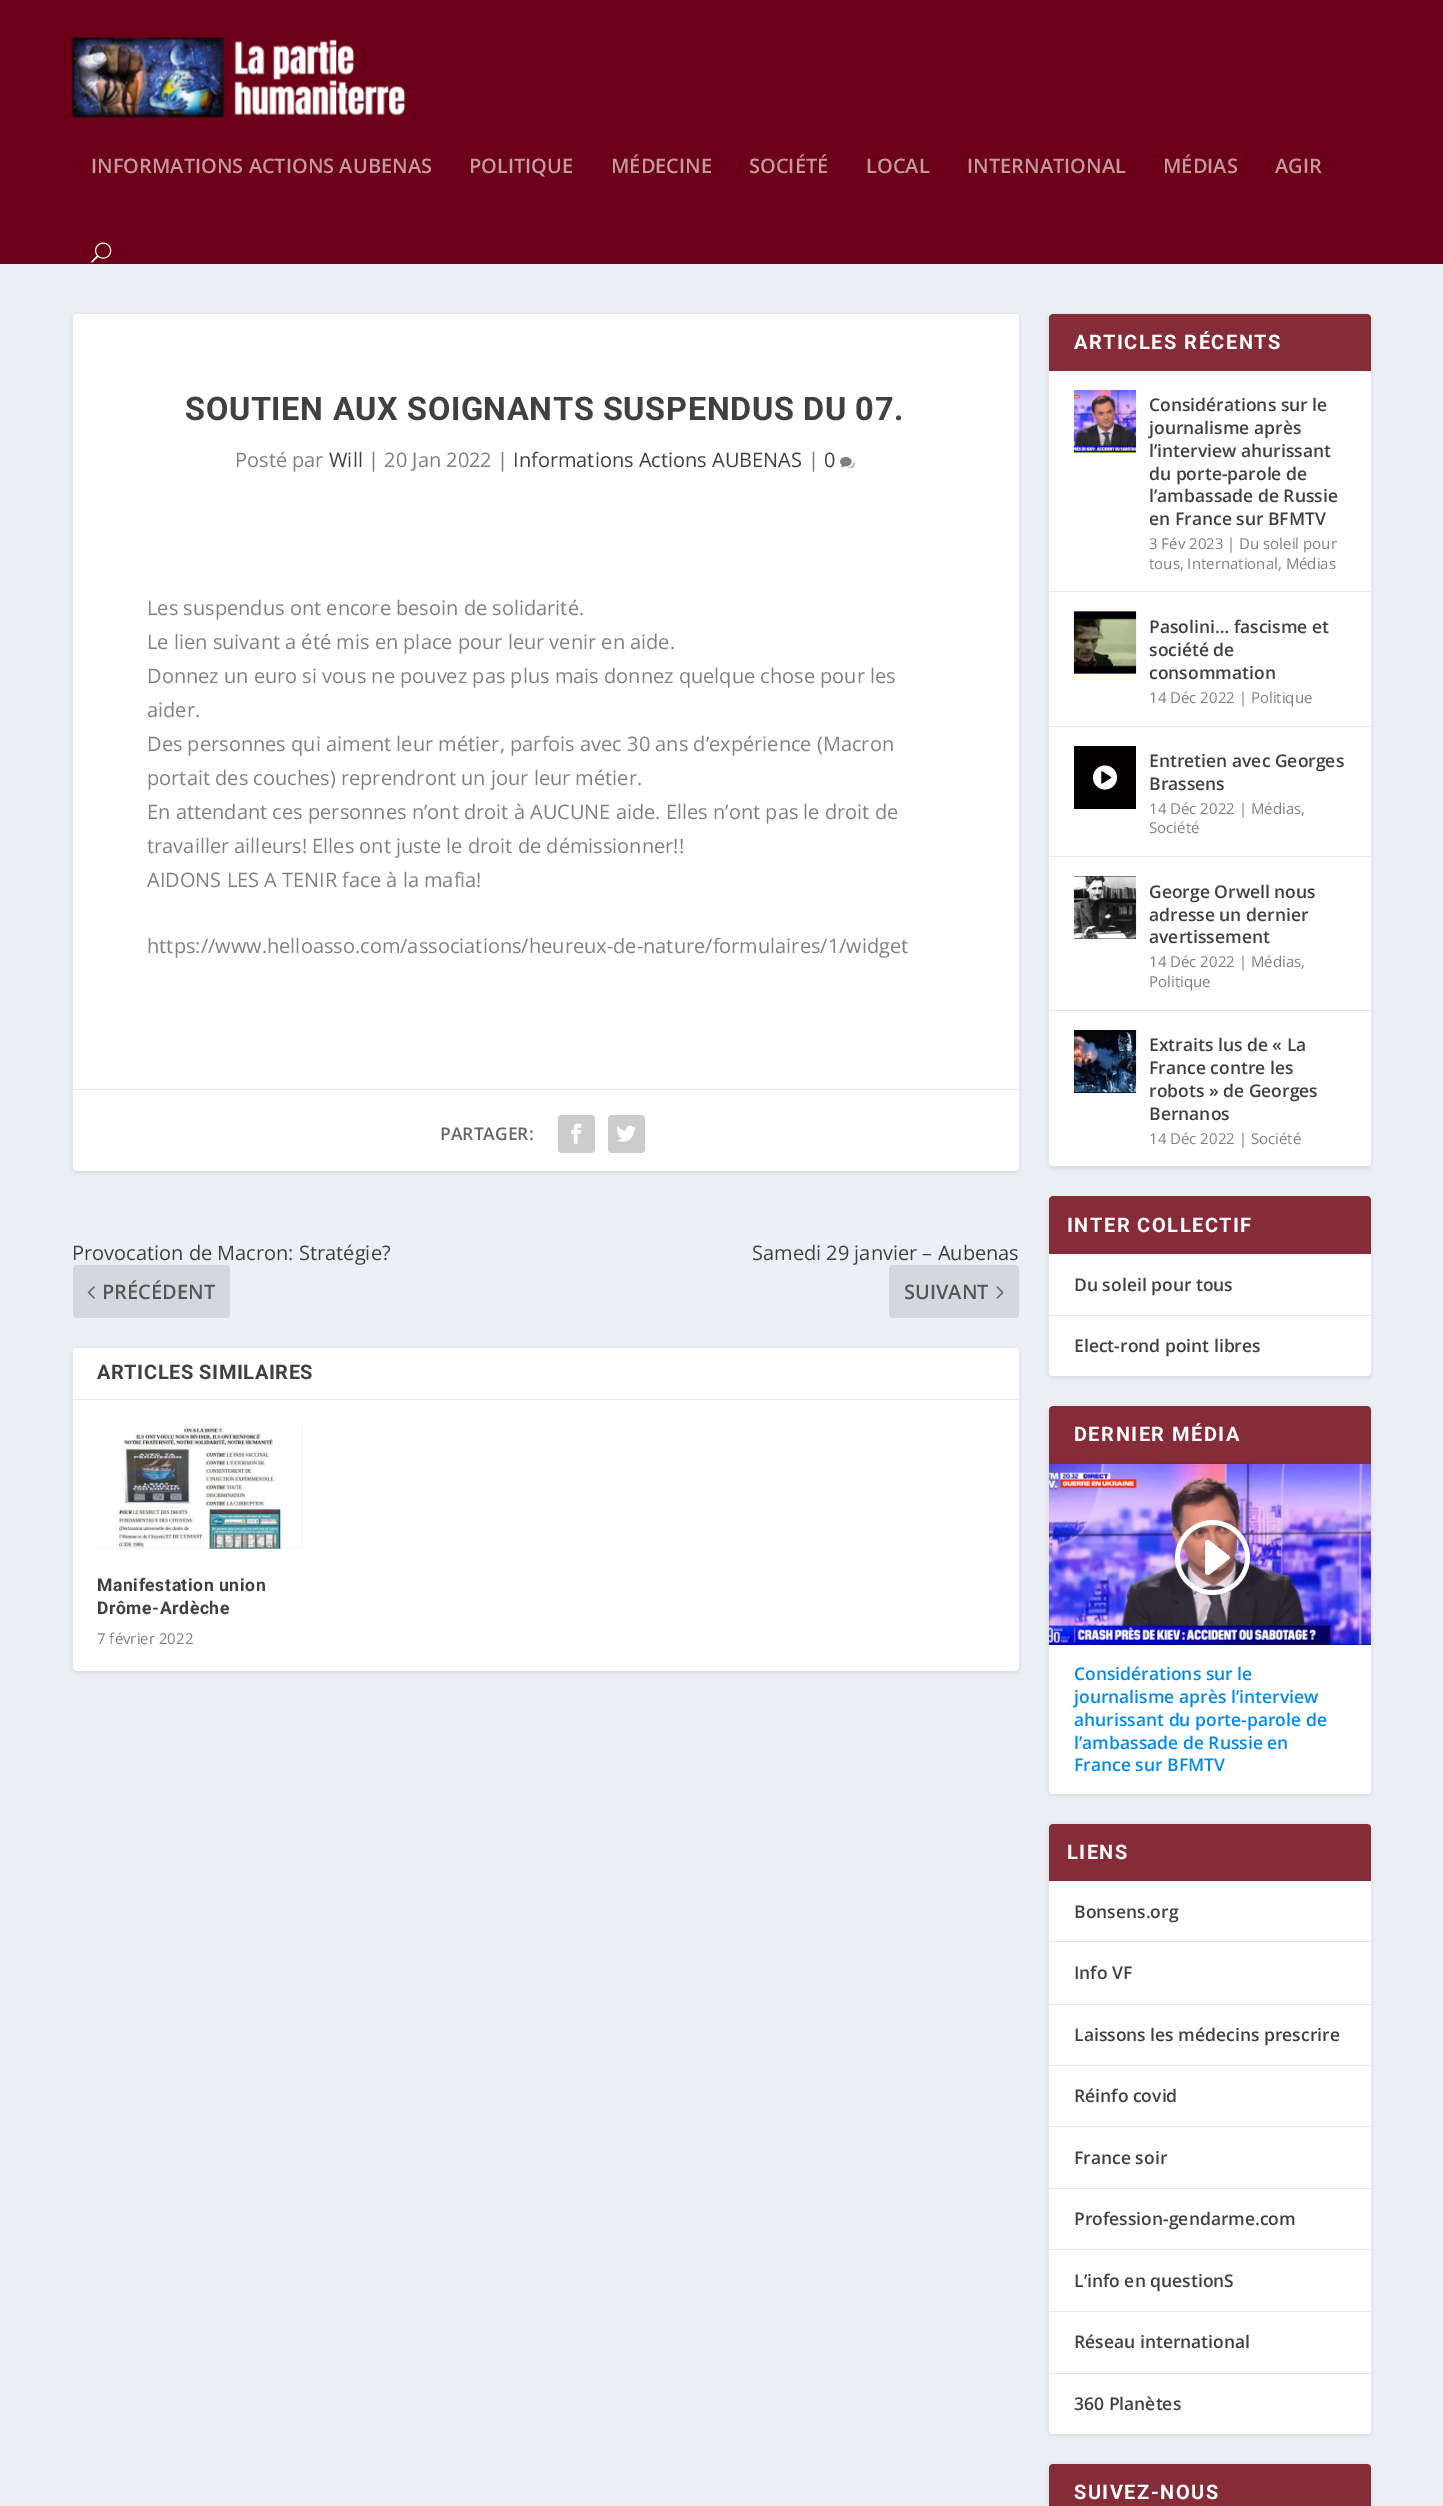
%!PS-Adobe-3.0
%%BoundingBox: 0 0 1443 2506
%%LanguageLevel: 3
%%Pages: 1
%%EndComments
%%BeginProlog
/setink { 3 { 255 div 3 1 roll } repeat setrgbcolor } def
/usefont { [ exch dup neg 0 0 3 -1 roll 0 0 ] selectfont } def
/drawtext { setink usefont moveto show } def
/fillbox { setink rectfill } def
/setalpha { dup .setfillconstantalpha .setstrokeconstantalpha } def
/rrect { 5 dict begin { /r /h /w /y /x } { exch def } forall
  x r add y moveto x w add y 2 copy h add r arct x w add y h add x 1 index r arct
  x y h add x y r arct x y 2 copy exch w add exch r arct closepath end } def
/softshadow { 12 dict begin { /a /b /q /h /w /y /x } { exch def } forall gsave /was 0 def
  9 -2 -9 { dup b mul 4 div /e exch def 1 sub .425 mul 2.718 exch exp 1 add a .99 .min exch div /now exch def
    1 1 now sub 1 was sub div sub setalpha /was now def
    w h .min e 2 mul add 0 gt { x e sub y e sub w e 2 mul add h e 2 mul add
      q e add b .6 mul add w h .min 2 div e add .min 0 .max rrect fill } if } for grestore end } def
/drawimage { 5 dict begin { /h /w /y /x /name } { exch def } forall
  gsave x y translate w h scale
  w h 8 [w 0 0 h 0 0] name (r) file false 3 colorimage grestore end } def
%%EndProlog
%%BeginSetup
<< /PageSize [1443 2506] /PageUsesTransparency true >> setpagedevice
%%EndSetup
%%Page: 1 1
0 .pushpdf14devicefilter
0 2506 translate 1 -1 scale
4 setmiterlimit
0 0 1443 2506 236 240 245 fillbox
0 0 1443 264 107 0 23 fillbox
(assets/img1.rgb) 72 37 334 81 drawimage
(INFORMATIONS ACTIONS AUBENAS) 91 173 /OpenSans-SemiBold 20 196 153 162 drawtext
(POLITIQUE) 469 173 /OpenSans-SemiBold 20 196 153 162 drawtext
(MÉDECINE) 611 173 /OpenSans-SemiBold 20 196 153 162 drawtext
(SOCIÉTÉ) 749 173 /OpenSans-SemiBold 20 196 153 162 drawtext
(LOCAL) 866 173 /OpenSans-SemiBold 20 196 153 162 drawtext
(INTERNATIONAL) 967 173 /OpenSans-SemiBold 20 196 153 162 drawtext
(MÉDIAS) 1163 173 /OpenSans-SemiBold 20 196 153 162 drawtext
(AGIR) 1275 173 /OpenSans-SemiBold 20 196 153 162 drawtext
(assets/img2.rgb) 91 242 21 21 drawimage
0 0 0 setink
73 315 946 858 4 2 0.1 softshadow
255 255 255 setink
73 314 946 857 4 rrect fill
/Roboto-Bold 32.5 usefont
64 64 64 setink
185 420 moveto 0.6 0 (SOUTIEN AUX SOIGNANTS SUSPENDUS DU 07.) ashow
(Posté par) 235 467 /OpenSans-Regular 20 128 128 128 drawtext
(Will) 329 467 /OpenSans-Regular 20 64 64 64 drawtext
(| 20 Jan 2022 |) 368 467 /OpenSans-Regular 20 128 128 128 drawtext
(Informations Actions AUBENAS) 513 467 /OpenSans-Regular 20 64 64 64 drawtext
(|) 808 467 /OpenSans-Regular 20 128 128 128 drawtext
(0) 824 467 /OpenSans-Regular 20 64 64 64 drawtext
(assets/img3.rgb) 840 457 15 12 drawimage
(Les suspendus ont encore besoin de solidarité.) 147 615 /OpenSans-Regular 20 128 128 128 drawtext
(Le lien suivant a été mis en place pour leur venir en aide.) 147 649 /OpenSans-Regular 20 128 128 128 drawtext
(Donnez un euro si vous ne pouvez pas plus mais donnez quelque chose pour les) 147 683 /OpenSans-Regular 20 128 128 128 drawtext
(aider.) 147 717 /OpenSans-Regular 20 128 128 128 drawtext
(Des personnes qui aiment leur métier, parfois avec 30 ans d’expérience \(Macron) 147 751 /OpenSans-Regular 20 128 128 128 drawtext
(portait des couches\) reprendront un jour leur métier.) 147 785 /OpenSans-Regular 20 128 128 128 drawtext
(En attendant ces personnes n’ont droit à AUCUNE aide. Elles n’ont pas le droit de) 147 819 /OpenSans-Regular 20 128 128 128 drawtext
(travailler ailleurs! Elles ont juste le droit de démissionner!!) 147 853 /OpenSans-Regular 20 128 128 128 drawtext
(AIDONS LES A TENIR face à la mafia!) 147 887 /OpenSans-Regular 20 128 128 128 drawtext
(https://www.helloasso.com/associations/heureux-de-nature/formulaires/1/widget) 147 953 /OpenSans-Regular 20 128 128 128 drawtext
73 1089 946 1 230 230 230 fillbox
(PARTAGER:) 440 1140 /OpenSans-SemiBold 17.5 102 102 102 drawtext
204 204 204 setink
558 1115 37 38 4 rrect fill
(assets/img4.rgb) 571 1123 11 21 drawimage
608 1115 37 38 4 rrect fill
(assets/img5.rgb) 616 1125 20 17 drawimage
(Provocation de Macron: Stratégie?) 72 1260 /OpenSans-Regular 20 64 64 64 drawtext
212 216 221 setink
73 1265 157 53 4 rrect fill
(assets/img6.rgb) 87 1286 8 13 drawimage
(PRÉCÉDENT) 102 1299 /OpenSans-SemiBold 20 85 86 88 drawtext
(Samedi 29 janvier – Aubenas) 752 1260 /OpenSans-Regular 20 64 64 64 drawtext
212 216 221 setink
889 1265 130 53 4 rrect fill
(SUIVANT) 904 1299 /OpenSans-SemiBold 20 85 86 88 drawtext
(assets/img7.rgb) 996 1286 8 13 drawimage
0 0 0 setink
73 1349 946 324 4 2 0.1 softshadow
255 255 255 setink
73 1348 946 323 4 rrect fill
73 1399 946 1 230 230 230 fillbox
/Roboto-Bold 20 usefont
64 64 64 setink
97 1379 moveto 0.6 0 (ARTICLES SIMILAIRES) ashow
98 1425 205 124 230 230 230 fillbox
(assets/img8.rgb) 98 1425 205 124 drawimage
/Roboto-Bold 17.5 usefont
64 64 64 setink
97 1591 moveto 0.6 0 (Manifestation union) ashow
97 1614 moveto 0.6 0 (Drôme-Ardèche) ashow
(7 février 2022) 97 1644 /OpenSans-Regular 15 128 128 128 drawtext
0 0 0 setink
1049 315 322 853 4 2 0.1 softshadow
255 255 255 setink
1049 314 322 852 4 rrect fill
134 44 57 setink
1053 314 moveto 1367 314 lineto 1369 314 1371 316 1371 318 curveto 1371 371 lineto 1049 371 lineto 1049 318 lineto 1049 316 1051 314 1053 314 curveto closepath fill
/Roboto-Bold 20 usefont
255 255 255 setink
1074 349 moveto 1.5 0 (ARTICLES RÉCENTS) ashow
1049 591 322 1 230 230 230 fillbox
1074 452 62 1 234 214 32 fillbox
(assets/img9.rgb) 1073 390 64 63 drawimage
(Considérations sur le) 1149 411 /OpenSans-SemiBold 17.5 64 64 64 drawtext
(journalisme après) 1149 434 /OpenSans-SemiBold 17.5 64 64 64 drawtext
(l’interview ahurissant) 1149 457 /OpenSans-SemiBold 17.5 64 64 64 drawtext
(du porte-parole de) 1149 480 /OpenSans-SemiBold 17.5 64 64 64 drawtext
(l’ambassade de Russie) 1149 502 /OpenSans-SemiBold 17.5 64 64 64 drawtext
(en France sur BFMTV) 1149 525 /OpenSans-SemiBold 17.5 64 64 64 drawtext
(3 Fév 2023 | Du soleil pour) 1149 549 /OpenSans-Regular 15 128 128 128 drawtext
(tous, International, Médias) 1149 569 /OpenSans-Regular 15 128 128 128 drawtext
1049 726 322 1 230 230 230 fillbox
1074 611 62 63 234 214 32 fillbox
(assets/img10.rgb) 1073 611 64 63 drawimage
(Pasolini… fascisme et) 1149 633 /OpenSans-SemiBold 17.5 64 64 64 drawtext
(société de) 1149 656 /OpenSans-SemiBold 17.5 64 64 64 drawtext
(consommation) 1149 679 /OpenSans-SemiBold 17.5 64 64 64 drawtext
(14 Déc 2022 | Politique) 1149 703 /OpenSans-Regular 15 128 128 128 drawtext
1049 856 322 1 230 230 230 fillbox
1074 746 62 63 2 0 0 fillbox
(assets/img11.rgb) 1092 765 26 25 drawimage
(Entretien avec Georges) 1149 767 /OpenSans-SemiBold 17.5 64 64 64 drawtext
(Brassens) 1149 790 /OpenSans-SemiBold 17.5 64 64 64 drawtext
(14 Déc 2022 | Médias,) 1149 814 /OpenSans-Regular 15 128 128 128 drawtext
(Société) 1149 833 /OpenSans-Regular 15 128 128 128 drawtext
1049 1010 322 1 230 230 230 fillbox
1074 876 62 63 2 0 0 fillbox
(assets/img12.rgb) 1073 876 64 63 drawimage
(George Orwell nous) 1149 898 /OpenSans-SemiBold 17.5 64 64 64 drawtext
(adresse un dernier) 1149 921 /OpenSans-SemiBold 17.5 64 64 64 drawtext
(avertissement) 1149 943 /OpenSans-SemiBold 17.5 64 64 64 drawtext
(14 Déc 2022 | Médias,) 1149 967 /OpenSans-Regular 15 128 128 128 drawtext
(Politique) 1149 987 /OpenSans-Regular 15 128 128 128 drawtext
1074 1092 62 1 2 0 0 fillbox
(assets/img13.rgb) 1073 1030 64 63 drawimage
(Extraits lus de « La) 1149 1051 /OpenSans-SemiBold 17.5 64 64 64 drawtext
(France contre les) 1149 1074 /OpenSans-SemiBold 17.5 64 64 64 drawtext
(robots » de Georges) 1149 1097 /OpenSans-SemiBold 17.5 64 64 64 drawtext
(Bernanos) 1149 1120 /OpenSans-SemiBold 17.5 64 64 64 drawtext
(14 Déc 2022 | Société) 1149 1144 /OpenSans-Regular 15 128 128 128 drawtext
0 0 0 setink
1049 1198 322 180 4 2 0.1 softshadow
255 255 255 setink
1049 1196 322 180 4 rrect fill
134 44 57 setink
1053 1196 moveto 1367 1196 lineto 1369 1196 1371 1198 1371 1200 curveto 1371 1254 lineto 1049 1254 lineto 1049 1200 lineto 1049 1198 1051 1196 1053 1196 curveto closepath fill
/Roboto-Bold 20 usefont
255 255 255 setink
1067 1232 moveto 1.5 0 (INTER COLLECTIF) ashow
1049 1315 322 1 230 230 230 fillbox
(Du soleil pour tous) 1074 1291 /OpenSans-SemiBold 17.5 64 64 64 drawtext
(Elect-rond point libres) 1074 1352 /OpenSans-SemiBold 17.5 64 64 64 drawtext
0 0 0 setink
1049 1408 322 387 4 2 0.1 softshadow
255 255 255 setink
1049 1406 322 388 4 rrect fill
134 44 57 setink
1053 1406 moveto 1367 1406 lineto 1369 1406 1371 1408 1371 1410 curveto 1371 1464 lineto 1049 1464 lineto 1049 1410 lineto 1049 1408 1051 1406 1053 1406 curveto closepath fill
/Roboto-Bold 20 usefont
255 255 255 setink
1074 1441 moveto 1.5 0 (DERNIER MÉDIA) ashow
(assets/img14.rgb) 1049 1463 322 182 drawimage
(assets/img15.rgb) 1175 1520 75 75 drawimage
(Considérations sur le) 1074 1680 /OpenSans-SemiBold 17.5 0 137 242 drawtext
(journalisme après l’interview) 1074 1703 /OpenSans-SemiBold 17.5 0 137 242 drawtext
(ahurissant du porte-parole de) 1074 1726 /OpenSans-SemiBold 17.5 0 137 242 drawtext
(l’ambassade de Russie en) 1074 1749 /OpenSans-SemiBold 17.5 0 137 242 drawtext
(France sur BFMTV) 1074 1771 /OpenSans-SemiBold 17.5 0 137 242 drawtext
0 0 0 setink
1049 1825 322 610 4 2 0.1 softshadow
255 255 255 setink
1049 1824 322 610 4 rrect fill
134 44 57 setink
1053 1824 moveto 1367 1824 lineto 1369 1824 1371 1826 1371 1828 curveto 1371 1881 lineto 1049 1881 lineto 1049 1828 lineto 1049 1826 1051 1824 1053 1824 curveto closepath fill
/Roboto-Bold 20 usefont
255 255 255 setink
1067 1859 moveto 1.5 0 (LIENS) ashow
1049 1941 322 1 230 230 230 fillbox
(Bonsens.org) 1074 1918 /OpenSans-SemiBold 17.5 64 64 64 drawtext
1049 2004 322 1 230 230 230 fillbox
(Info VF) 1074 1979 /OpenSans-SemiBold 17.5 64 64 64 drawtext
1049 2065 322 1 230 230 230 fillbox
(Laissons les médecins prescrire) 1074 2041 /OpenSans-SemiBold 17.5 64 64 64 drawtext
1049 2126 322 1 230 230 230 fillbox
(Réinfo covid) 1074 2102 /OpenSans-SemiBold 17.5 64 64 64 drawtext
1049 2188 322 1 230 230 230 fillbox
(France soir) 1074 2164 /OpenSans-SemiBold 17.5 64 64 64 drawtext
1049 2249 322 1 230 230 230 fillbox
(Profession-gendarme.com) 1074 2225 /OpenSans-SemiBold 17.5 64 64 64 drawtext
1049 2311 322 1 230 230 230 fillbox
(L’info en questionS) 1074 2287 /OpenSans-SemiBold 17.5 64 64 64 drawtext
1049 2373 322 1 230 230 230 fillbox
(Réseau international) 1074 2348 /OpenSans-SemiBold 17.5 64 64 64 drawtext
(360 Planètes) 1074 2410 /OpenSans-SemiBold 17.5 64 64 64 drawtext
0 0 0 setink
1049 2465 322 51 4 2 0.1 softshadow
134 44 57 setink
1053 2464 moveto 1367 2464 lineto 1369 2464 1371 2466 1371 2468 curveto 1371 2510 lineto 1049 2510 lineto 1049 2468 lineto 1049 2466 1051 2464 1053 2464 curveto closepath fill
/Roboto-Bold 20 usefont
255 255 255 setink
1074 2499 moveto 1.5 0 (SUIVEZ-NOUS) ashow
.poppdf14devicefilter showpage
%%EOF
